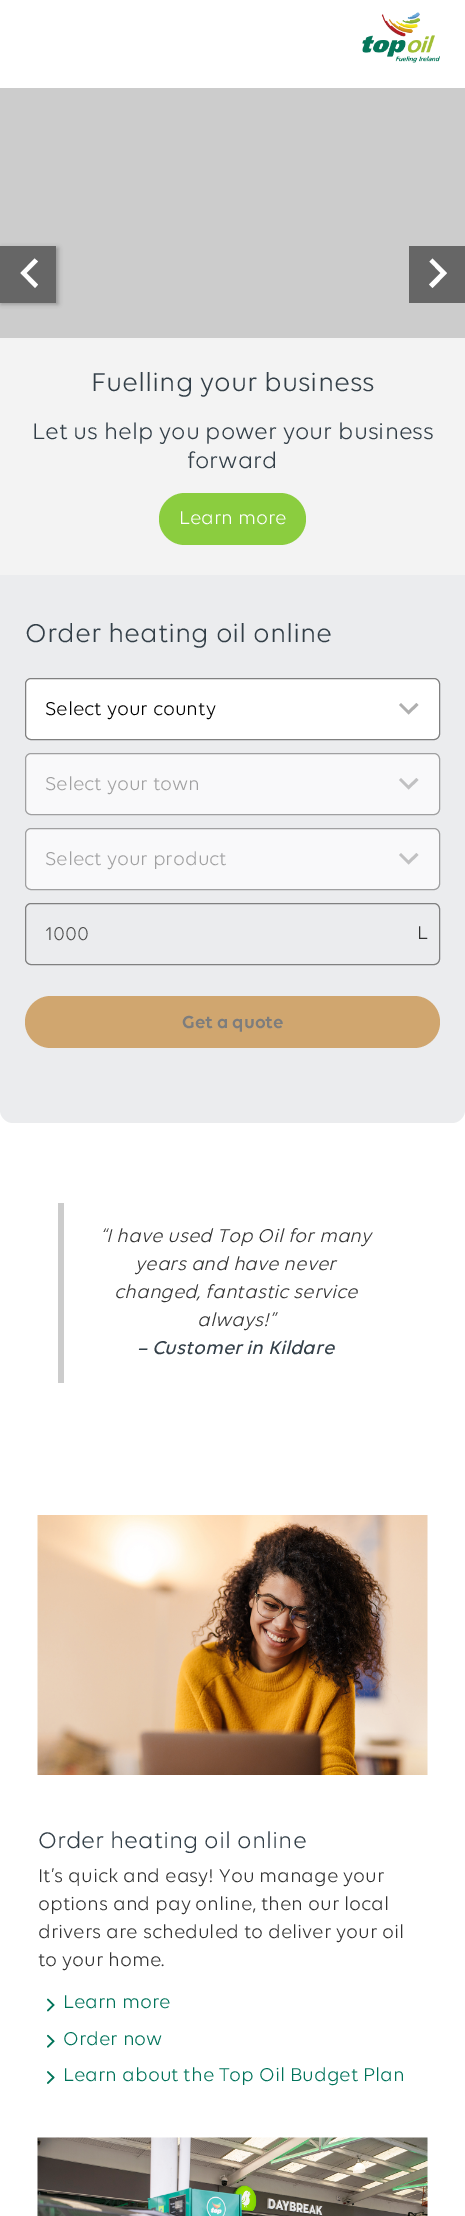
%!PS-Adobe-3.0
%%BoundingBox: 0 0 465 2216
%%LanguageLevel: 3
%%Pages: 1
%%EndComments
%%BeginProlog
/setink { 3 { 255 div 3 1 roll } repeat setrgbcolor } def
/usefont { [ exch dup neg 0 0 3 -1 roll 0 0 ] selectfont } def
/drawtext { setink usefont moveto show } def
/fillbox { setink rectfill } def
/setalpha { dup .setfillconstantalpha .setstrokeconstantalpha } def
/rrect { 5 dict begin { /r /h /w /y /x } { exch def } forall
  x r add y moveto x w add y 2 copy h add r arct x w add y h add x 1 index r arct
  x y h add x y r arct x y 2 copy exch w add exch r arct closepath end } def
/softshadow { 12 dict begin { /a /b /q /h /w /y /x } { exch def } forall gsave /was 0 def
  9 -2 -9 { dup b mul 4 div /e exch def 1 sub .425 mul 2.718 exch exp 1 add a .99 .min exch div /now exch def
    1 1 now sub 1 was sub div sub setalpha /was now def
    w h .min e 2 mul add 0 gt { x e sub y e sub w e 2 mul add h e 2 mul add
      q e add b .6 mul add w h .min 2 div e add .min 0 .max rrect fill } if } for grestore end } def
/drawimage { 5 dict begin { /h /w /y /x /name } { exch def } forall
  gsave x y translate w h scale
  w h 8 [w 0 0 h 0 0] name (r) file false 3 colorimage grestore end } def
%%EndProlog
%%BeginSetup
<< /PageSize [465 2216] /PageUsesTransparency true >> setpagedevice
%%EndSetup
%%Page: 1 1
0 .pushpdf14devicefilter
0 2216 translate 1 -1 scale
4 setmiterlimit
0 0 465 2216 255 255 255 fillbox
(assets/img1.rgb) 362 12 78 51 drawimage
0 88 465 250 204 204 204 fillbox
gsave
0 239 moveto 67 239 lineto 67 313 lineto 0 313 lineto closepath 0 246 moveto 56 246 lineto 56 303 lineto 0 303 lineto closepath eoclip newpath
0 0 0 setink
1 248 57 56 0 2.5 0.3 softshadow
grestore
0.5 setalpha
0 246 56 57 0 0 0 fillbox
1 setalpha
255 255 255 setink
34.5 258.5 moveto 38 261.5 lineto 26.5 273 lineto 38 284.5 lineto 35 288 lineto 20.5 273 lineto closepath eofill
409 246 56 57 102 102 102 fillbox
255 255 255 setink
432.5 258.5 moveto 429.5 261.5 lineto 440.5 273 lineto 429 284.5 lineto 432.5 288 lineto 447 273 lineto closepath eofill
0 338 465 237 243 243 243 fillbox
(Fuelling your business) 91 391 /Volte-Regular 27.75 51 63 72 drawtext
(Let us help you power your business) 32 439 /Volte-Regular 24 51 63 72 drawtext
(forward) 187 468 /Volte-Regular 24 51 63 72 drawtext
139 205 63 setink
159 493 147 52 26 rrect fill
(Learn more) 179 524 /Volte-Regular 20 255 255 255 drawtext
235 236 238 setink
0 575 moveto 465 575 lineto 465 1110 lineto 465 1117 459 1123 452 1123 curveto 13 1123 lineto 6 1123 0 1117 0 1110 curveto closepath fill
(Order heating oil online) 25 642 /Volte-Regular 27.75 51 63 72 drawtext
255 255 255 setink
25 678 415 62 6 rrect fill
175 175 175 setink
399 705 moveto 401 703 lineto 408.5 710.5 lineto 416.5 703 lineto 418.5 705 lineto 408.5 714.5 lineto closepath eofill
128 128 128 setink
25.5 678.5 414 61 5.5 rrect stroke
(Select your county) 45 715 /Volte-Regular 20 0 0 0 drawtext
249 249 250 setink
25 753 415 62 6 rrect fill
193 193 194 setink
399 780 moveto 401 778 lineto 408.5 785.5 lineto 416.5 778 lineto 418.5 780 lineto 408.5 789.5 lineto closepath eofill
160 160 161 setink
25.5 753.5 414 61 5.5 rrect stroke
(Select your town) 45 790 /Volte-Regular 20 160 160 161 drawtext
249 249 250 setink
25 828 415 62 6 rrect fill
193 193 194 setink
399 855 moveto 401 853 lineto 408.5 860.5 lineto 416.5 853 lineto 418.5 855 lineto 408.5 864.5 lineto closepath eofill
160 160 161 setink
25.5 828.5 414 61 5.5 rrect stroke
(Select your product) 45 865 /Volte-Regular 20 160 160 161 drawtext
128 128 128 setink
25.5 903.5 414 61 5.5 rrect stroke
(1000) 45 940 /Volte-Regular 20 84 84 84 drawtext
(L) 417 939 /Volte-Regular 20 51 51 51 drawtext
208 166 111 setink
25 996 415 52 26 rrect fill
(Get a quote) 182 1028 /Volte-SemiBold 18.75 125 125 125 drawtext
58 1203 6 180 204 204 204 fillbox
(“I have used Top Oil for many) 100 1242 /Volte-Italic 20 51 51 51 drawtext
(years and have never) 135 1270 /Volte-Italic 20 51 51 51 drawtext
(changed, fantastic service) 114 1298 /Volte-Italic 20 51 51 51 drawtext
(always!”) 197 1326 /Volte-Italic 20 51 51 51 drawtext
(– Customer in Kildare) 137 1354 /Volte-MediumItalic 20 51 63 72 drawtext
(assets/img2.rgb) 37 1515 391 260 drawimage
(Order heating oil online) 38 1848 /Volte-Regular 24.25 51 63 72 drawtext
(It’s quick and easy! You manage your) 38 1882 /Volte-Regular 20 51 51 51 drawtext
(options and pay online, then our local) 38 1910 /Volte-Regular 20 51 51 51 drawtext
(drivers are scheduled to deliver your oil) 38 1938 /Volte-Regular 20 51 51 51 drawtext
(to your home.) 38 1966 /Volte-Regular 20 51 51 51 drawtext
(assets/img3.rgb) 47 1998 8 14 drawimage
(Learn more) 63 2008 /Volte-Regular 20 0 115 90 drawtext
(assets/img4.rgb) 47 2034 8 14 drawimage
(Order now) 63 2045 /Volte-Regular 20 0 115 90 drawtext
(assets/img5.rgb) 47 2071 8 13 drawimage
(Learn about the Top Oil Budget Plan) 63 2081 /Volte-Regular 20 0 115 90 drawtext
(assets/img6.rgb) 37 2137 391 79 drawimage
.poppdf14devicefilter showpage
%%EOF
